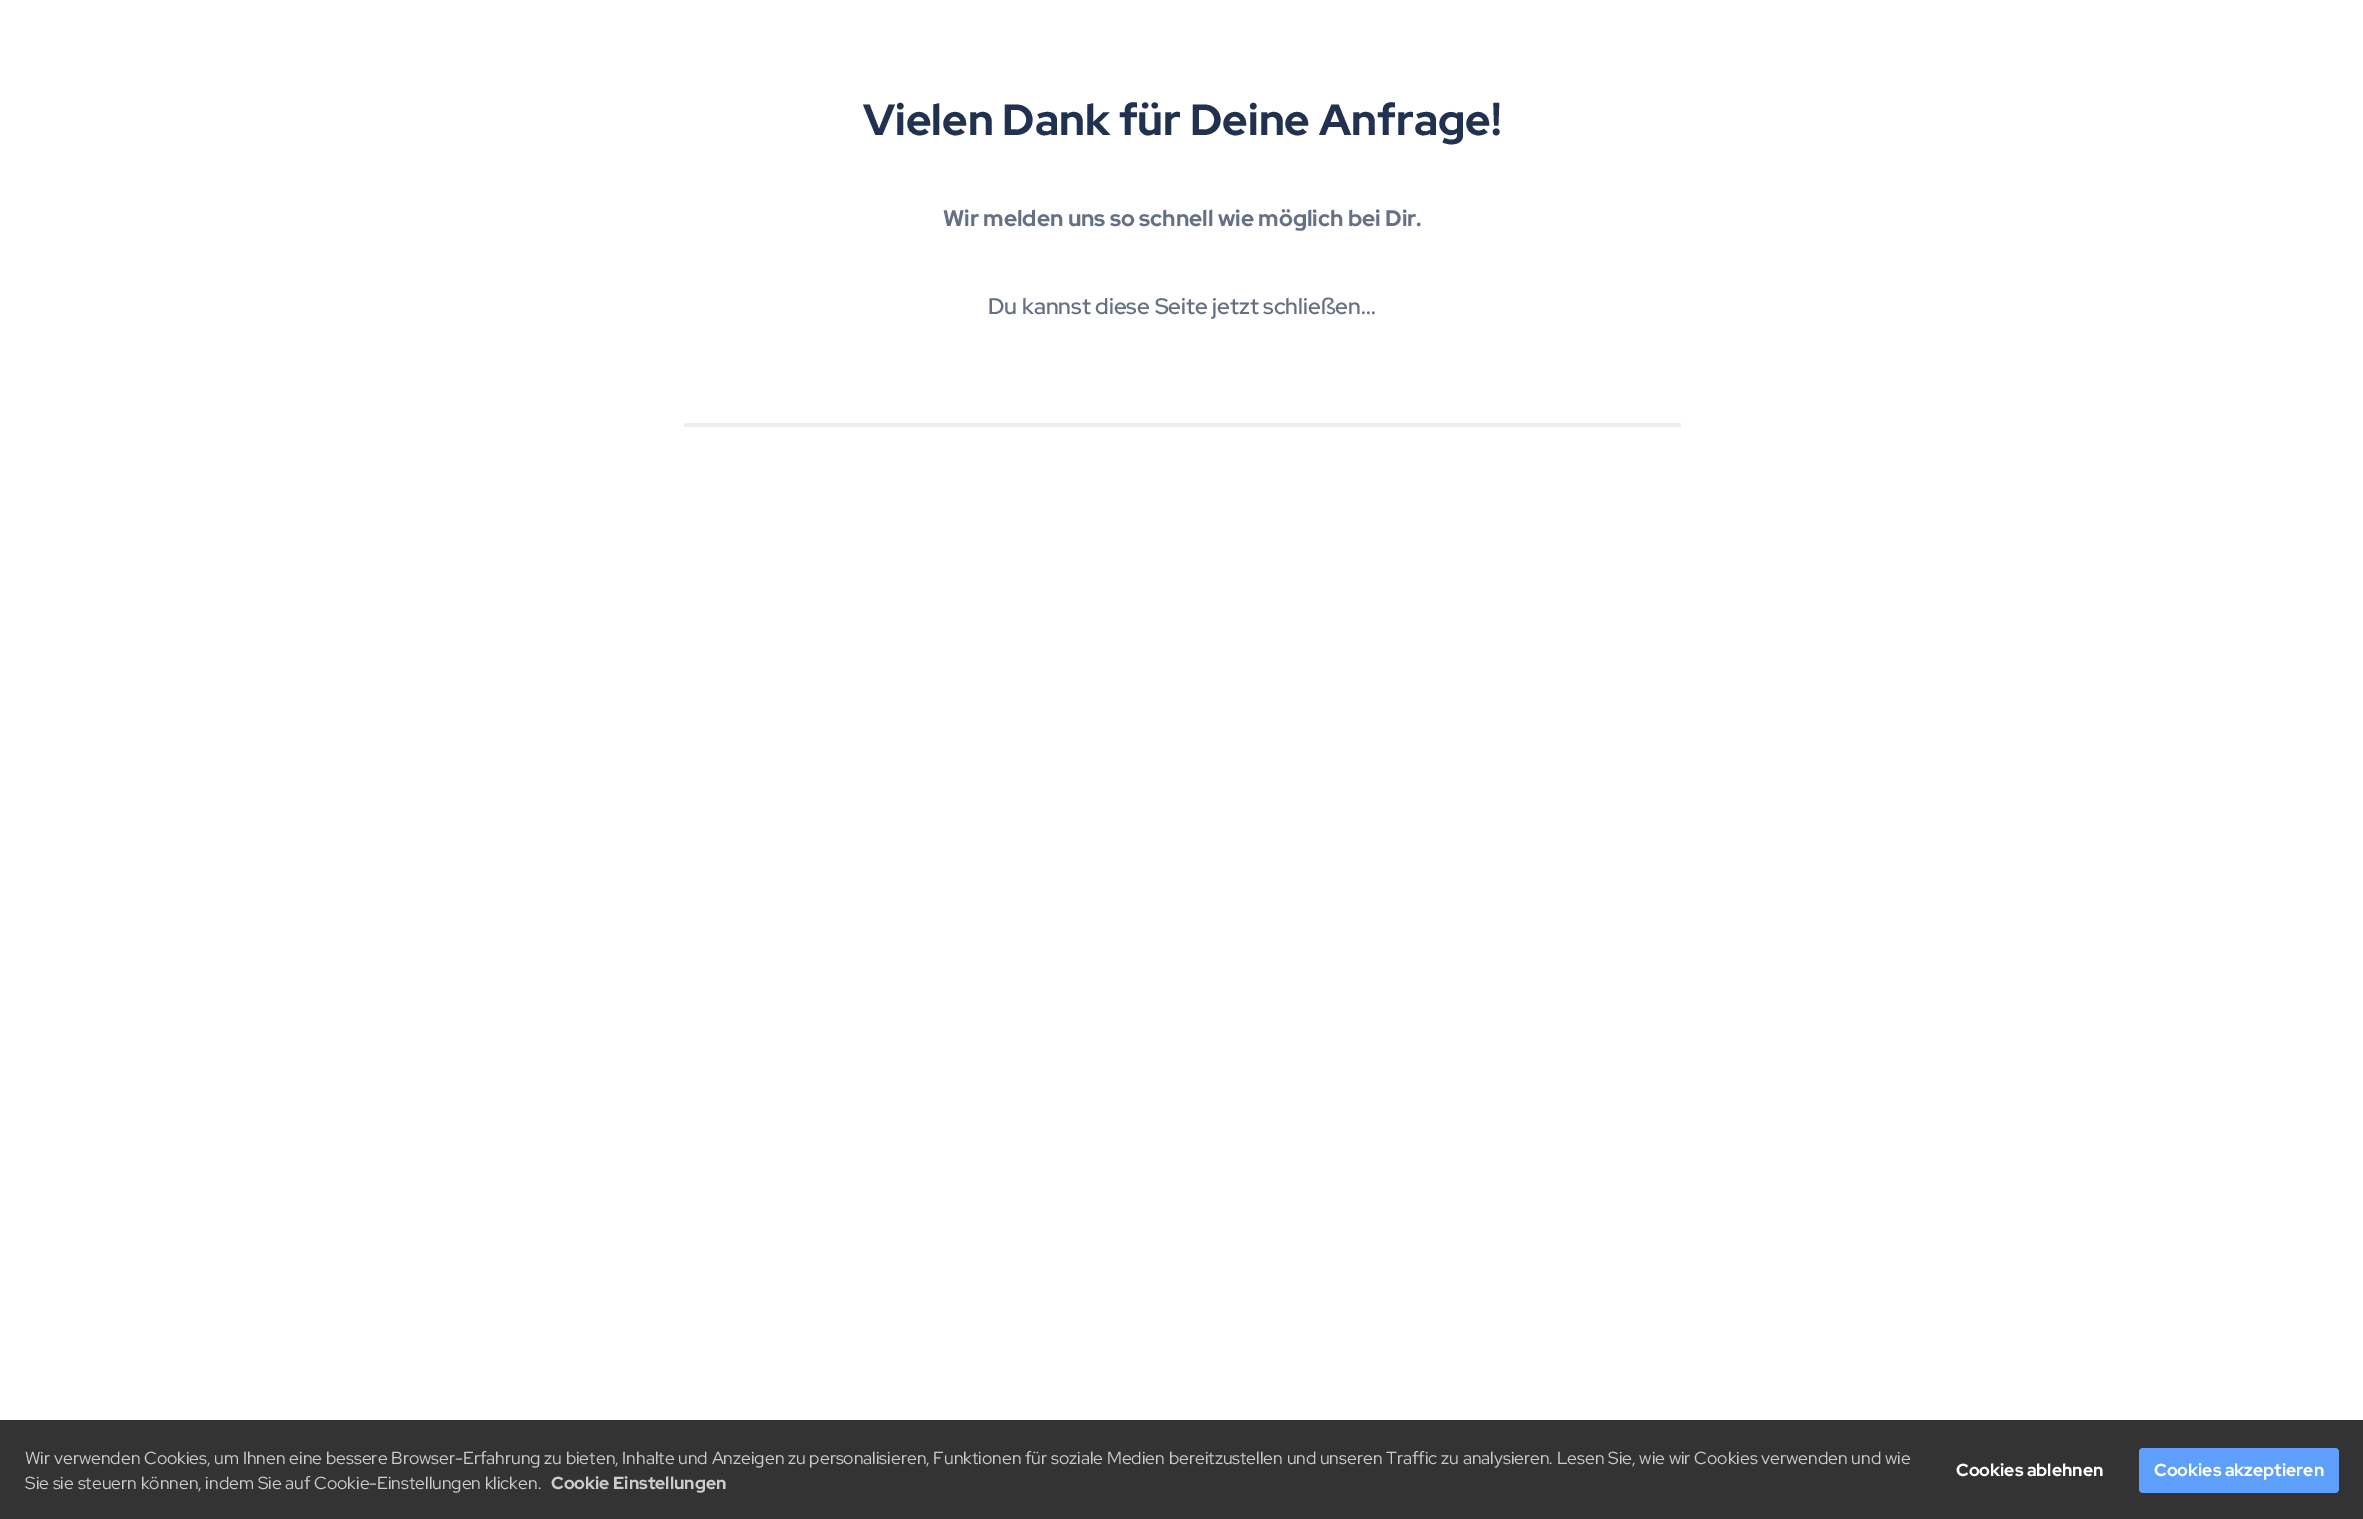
%!PS-Adobe-3.0
%%BoundingBox: 0 0 2363 1519
%%LanguageLevel: 3
%%Pages: 1
%%EndComments
%%BeginProlog
/setink { 3 { 255 div 3 1 roll } repeat setrgbcolor } def
/usefont { [ exch dup neg 0 0 3 -1 roll 0 0 ] selectfont } def
/drawtext { setink usefont moveto show } def
/fillbox { setink rectfill } def
/rrect { 5 dict begin { /r /h /w /y /x } { exch def } forall
  x r add y moveto x w add y 2 copy h add r arct x w add y h add x 1 index r arct
  x y h add x y r arct x y 2 copy exch w add exch r arct closepath end } def
%%EndProlog
%%BeginSetup
<< /PageSize [2363 1519] >> setpagedevice
%%EndSetup
%%Page: 1 1
0 1519 translate 1 -1 scale
4 setmiterlimit
0 0 2363 1519 255 255 255 fillbox
(Vielen Dank für Deine Anfrage!) 863 135 /RedHatDisplay-Bold 43.75 33 50 80 drawtext
(Wir melden uns so schnell wie möglich bei Dir.) 943 226 /RedHatDisplay-Bold 22.5 100 112 133 drawtext
(Du kannst diese Seite jetzt schließen...) 988 314 /RedHatDisplay-Medium 22.5 100 112 133 drawtext
684 423 997 4 238 238 238 fillbox
0 1420 2363 99 51 51 51 fillbox
(Wir verwenden Cookies, um Ihnen eine bessere Browser-Erfahrung zu bieten, Inhalte und Anzeigen zu personalisieren, Funktionen für soziale Medien bereitzustellen und unseren Traffic zu analysieren. Lesen Sie, wie wir Cookies verwenden und wie) 25 1464 /RedHatDisplay-Regular 17.5 204 204 204 drawtext
(Sie sie steuern können, indem Sie auf Cookie-Einstellungen klicken.) 25 1489 /RedHatDisplay-Regular 17.5 204 204 204 drawtext
(Cookie Einstellungen) 551 1489 /RedHatDisplay-Bold 17.5 204 204 204 drawtext
(Cookies ablehnen) 1956 1476 /RedHatDisplay-Bold 17.5 255 255 255 drawtext
93 159 251 setink
2139 1448 200 45 4 rrect fill
(Cookies akzeptieren) 2154 1476 /RedHatDisplay-Bold 17.5 255 255 255 drawtext
showpage
%%EOF
